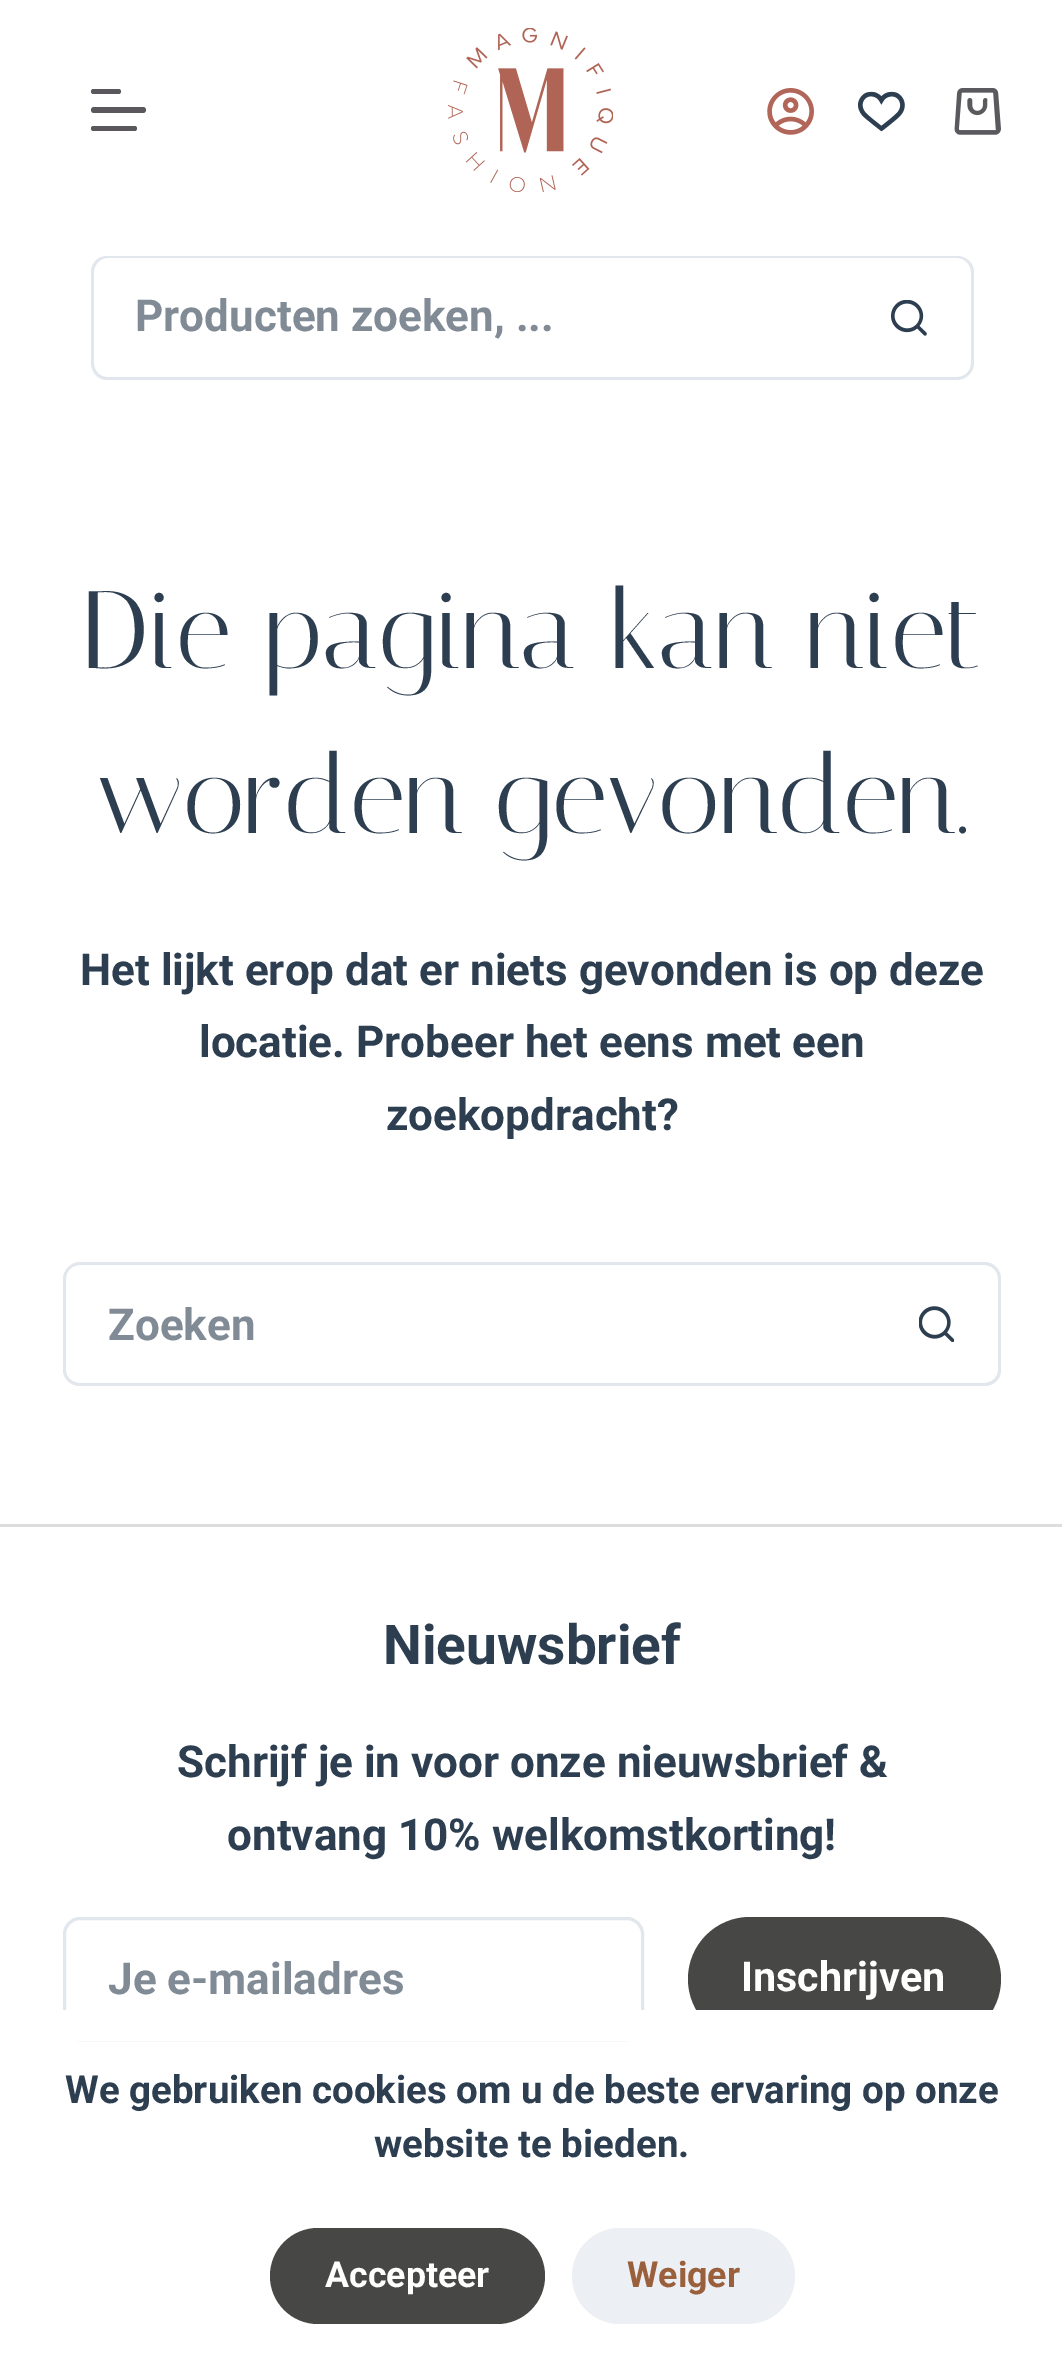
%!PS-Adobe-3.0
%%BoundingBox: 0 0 1062 2377
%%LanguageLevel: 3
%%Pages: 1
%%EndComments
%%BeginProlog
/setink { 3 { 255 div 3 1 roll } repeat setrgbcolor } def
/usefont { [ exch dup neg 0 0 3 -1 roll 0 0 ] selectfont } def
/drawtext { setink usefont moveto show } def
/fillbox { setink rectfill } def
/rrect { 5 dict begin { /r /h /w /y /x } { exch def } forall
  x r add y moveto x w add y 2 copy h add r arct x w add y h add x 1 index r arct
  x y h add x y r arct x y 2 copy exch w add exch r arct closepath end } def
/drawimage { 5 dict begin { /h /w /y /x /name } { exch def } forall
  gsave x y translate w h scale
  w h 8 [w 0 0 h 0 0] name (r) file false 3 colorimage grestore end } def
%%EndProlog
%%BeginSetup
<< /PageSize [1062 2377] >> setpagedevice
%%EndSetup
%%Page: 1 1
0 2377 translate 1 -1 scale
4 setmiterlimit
0 0 1062 2377 255 255 255 fillbox
90 88 93 setink
91 89 30 5 2.5 rrect fill
91 107 55 6 3 rrect fill
91 126 46 5 2.5 rrect fill
(assets/img1.rgb) 448 28 165 164 drawimage
(assets/img2.rgb) 767 88 47 47 drawimage
(assets/img3.rgb) 858 91 47 41 drawimage
(assets/img4.rgb) 954 88 47 47 drawimage
226 231 237 setink
107 256 moveto 850 256 lineto 850 380 lineto 107 380 lineto 98 380 91 372 91 363 curveto 91 272 lineto 91 263 98 256 107 256 curveto closepath 107 258 moveto 850 258 lineto 850 377 lineto 107 377 lineto 100 377 94 371 94 363 curveto 94 272 lineto 94 265 100 258 107 258 curveto closepath eofill
(Producten zoeken, ...) 135 331 /Roboto-Bold 44 128 139 150 drawtext
226 231 237 setink
850 256 moveto 957 256 lineto 966 256 974 263 974 272 curveto 974 363 lineto 974 372 966 380 957 380 curveto 850 380 lineto closepath 850 258 moveto 957 258 lineto 965 258 971 265 971 272 curveto 971 363 lineto 971 371 965 377 957 377 curveto 850 377 lineto closepath eofill
(assets/img5.rgb) 891 300 36 36 drawimage
(Die pagina kan niet) 81 668 /Italiana-Regular 110 44 62 80 drawtext
(worden gevonden.) 96 833 /Italiana-Regular 110 44 62 80 drawtext
(Het lijkt erop dat er niets gevonden is op deze) 80 985 /Roboto-Bold 44 44 62 80 drawtext
(locatie. Probeer het eens met een) 199 1057 /Roboto-Bold 44 44 62 80 drawtext
(zoekopdracht?) 386 1130 /Roboto-Bold 44 44 62 80 drawtext
226 231 237 setink
80 1262 moveto 877 1262 lineto 877 1386 lineto 80 1386 lineto 71 1386 63 1379 63 1370 curveto 63 1279 lineto 63 1270 71 1262 80 1262 curveto closepath 80 1265 moveto 877 1265 lineto 877 1383 lineto 80 1383 lineto 72 1383 66 1377 66 1370 curveto 66 1279 lineto 66 1271 72 1265 80 1265 curveto closepath eofill
(Zoeken) 108 1340 /Roboto-Bold 44 128 139 150 drawtext
226 231 237 setink
877 1262 moveto 984 1262 lineto 994 1262 1001 1270 1001 1279 curveto 1001 1370 lineto 1001 1379 994 1386 984 1386 curveto 877 1386 lineto closepath 877 1265 moveto 984 1265 lineto 992 1265 998 1271 998 1279 curveto 998 1370 lineto 998 1377 992 1383 984 1383 curveto 877 1383 lineto closepath eofill
(assets/img6.rgb) 919 1306 35 36 drawimage
0 1524 1062 3 221 221 221 fillbox
(Nieuwsbrief) 383 1664 /Roboto-Bold 55 44 62 80 drawtext
(Schrijf je in voor onze nieuwsbrief &) 177 1777 /Roboto-Bold 44 44 62 80 drawtext
(ontvang 10% welkomstkorting!) 227 1850 /Roboto-Bold 44 44 62 80 drawtext
226 231 237 setink
3 setlinewidth
64.5 1918.5 578 121 15.5 rrect stroke
(Je e-mailadres) 108 1994 /Roboto-Bold 44 128 139 150 drawtext
71 71 69 setink
688 1917 313 124 62 rrect fill
(Inschrijven) 741 1991 /Roboto-Bold 41.25 255 255 255 drawtext
63 2010 930 31 255 255 255 fillbox
(We gebruiken cookies om u de beste ervaring op onze) 65 2103 /Roboto-Bold 38.5 44 62 80 drawtext
(website te bieden.) 374 2157 /Roboto-Bold 38.5 44 62 80 drawtext
71 71 69 setink
270 2228 275 96 48 rrect fill
(Accepteer) 325 2287 /Roboto-Bold 35.75 255 255 255 drawtext
236 239 243 setink
572 2228 223 96 48 rrect fill
(Weiger) 627 2287 /Roboto-Bold 35.75 154 96 59 drawtext
showpage
%%EOF
